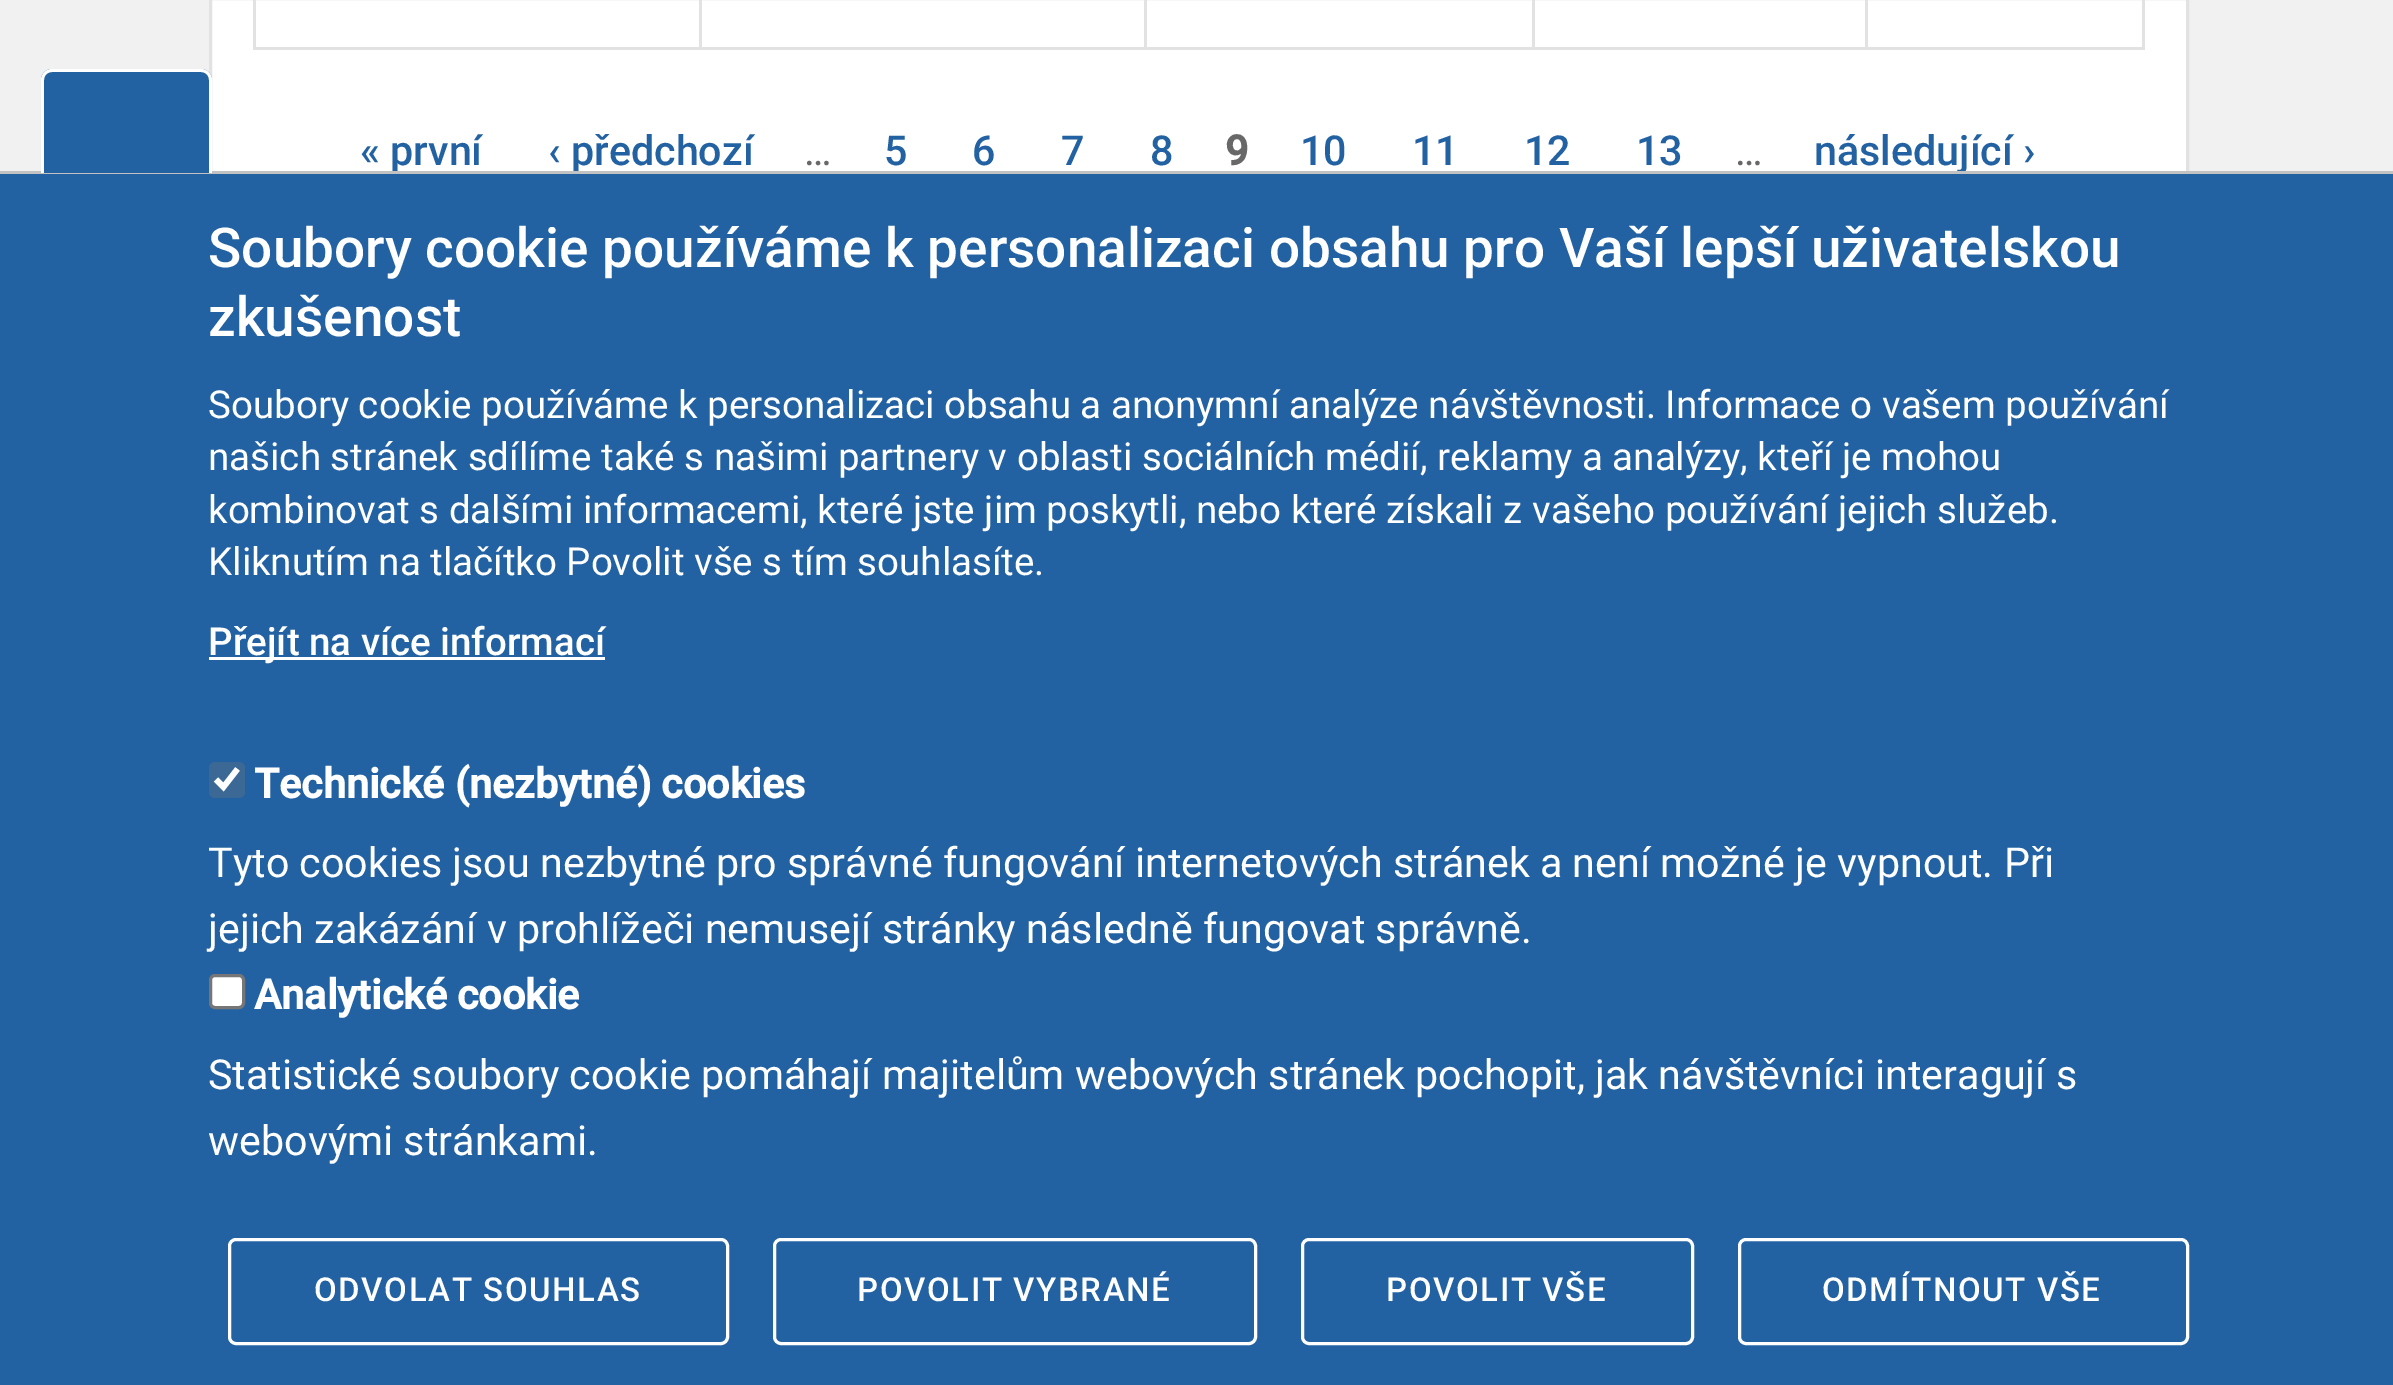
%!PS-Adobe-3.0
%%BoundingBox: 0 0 2393 1385
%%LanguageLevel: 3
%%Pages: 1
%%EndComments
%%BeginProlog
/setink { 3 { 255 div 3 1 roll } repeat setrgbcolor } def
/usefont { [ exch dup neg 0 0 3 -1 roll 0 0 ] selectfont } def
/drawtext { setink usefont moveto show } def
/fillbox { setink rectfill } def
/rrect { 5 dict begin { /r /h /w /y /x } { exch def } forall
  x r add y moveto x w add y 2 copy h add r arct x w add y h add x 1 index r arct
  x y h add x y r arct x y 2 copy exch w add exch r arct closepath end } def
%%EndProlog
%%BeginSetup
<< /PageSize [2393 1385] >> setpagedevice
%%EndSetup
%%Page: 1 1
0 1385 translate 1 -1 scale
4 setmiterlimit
0 0 2393 1385 241 241 241 fillbox
212 0 1974 171 255 255 255 fillbox
226 226 226 setink
3 setlinewidth
210.5 -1.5 1977 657 rectstroke
2142 0 3 50 226 226 226 fillbox
253 47 1892 3 226 226 226 fillbox
253 0 3 50 226 226 226 fillbox
699 0 3 50 226 226 226 fillbox
1144 0 3 50 226 226 226 fillbox
1532 0 3 50 226 226 226 fillbox
1865 0 3 50 226 226 226 fillbox
(« první) 360 165 /Roboto-Medium 41.25 35 98 162 drawtext
(‹ předchozí) 548 165 /Roboto-Medium 41.25 35 98 162 drawtext
(…) 804 165 /Roboto-Regular 41.25 104 104 104 drawtext
(5) 884 165 /Roboto-Medium 41.25 35 98 162 drawtext
(6) 972 165 /Roboto-Medium 41.25 35 98 162 drawtext
(7) 1061 165 /Roboto-Medium 41.25 35 98 162 drawtext
(8) 1150 165 /Roboto-Medium 41.25 35 98 162 drawtext
(9) 1225 165 /Roboto-Bold 41.25 104 104 104 drawtext
(10) 1300 165 /Roboto-Medium 41.25 35 98 162 drawtext
(11) 1412 165 /Roboto-Medium 41.25 35 98 162 drawtext
(12) 1524 165 /Roboto-Medium 41.25 35 98 162 drawtext
(13) 1636 165 /Roboto-Medium 41.25 35 98 162 drawtext
(…) 1735 165 /Roboto-Regular 41.25 104 104 104 drawtext
(následující ›) 1814 165 /Roboto-Medium 41.25 35 98 162 drawtext
0 174 2393 1211 35 98 162 fillbox
0 171 2393 3 194 194 194 fillbox
35 98 162 setink
52 69 moveto 201 69 lineto 207 69 212 74 212 80 curveto 212 173 lineto 41 173 lineto 41 80 lineto 41 74 46 69 52 69 curveto closepath fill
255 255 255 setink
52 69 moveto 201 69 lineto 207 69 212 74 212 80 curveto 212 173 lineto 41 173 lineto 41 80 lineto 41 74 46 69 52 69 curveto closepath 52 72 moveto 201 72 lineto 205 72 209 75 209 80 curveto 209 173 lineto 44 173 lineto 44 80 lineto 44 75 48 72 52 72 curveto closepath eofill
(Soubory cookie používáme k personalizaci obsahu pro Vaší lepší uživatelskou) 208 267 /Roboto-Medium 55 255 255 255 drawtext
(zkušenost) 208 336 /Roboto-Medium 55 255 255 255 drawtext
(Soubory cookie používáme k personalizaci obsahu a anonymní analýze návštěvnosti. Informace o vašem používání) 208 418 /Roboto-Regular 38.5 255 255 255 drawtext
(našich stránek sdílíme také s našimi partnery v oblasti sociálních médií, reklamy a analýzy, kteří je mohou) 208 470 /Roboto-Regular 38.5 255 255 255 drawtext
(kombinovat s dalšími informacemi, které jste jim poskytli, nebo které získali z vašeho používání jejich služeb.) 208 523 /Roboto-Regular 38.5 255 255 255 drawtext
(Kliknutím na tlačítko Povolit vše s tím souhlasíte.) 208 575 /Roboto-Regular 38.5 255 255 255 drawtext
209 657 396 3 255 255 255 fillbox
(Přejít na více informací) 208 655 /Roboto-Medium 38.5 255 255 255 drawtext
60 104 149 setink
209 762 36 36 6 rrect fill
255 255 255 setink
5.7 setlinewidth
216 779.5 moveto 223.5 787 lineto 237.5 769 lineto stroke
(Technické \(nezbytné\) cookies) 254 798 /Roboto-Bold 41.25 255 255 255 drawtext
(Tyto cookies jsou nezbytné pro správné fungování internetových stránek a není možné je vypnout. Při) 208 877 /Roboto-Regular 41.25 255 255 255 drawtext
(jejich zakázání v prohlížeči nemusejí stránky následně fungovat správně.) 208 943 /Roboto-Regular 41.25 255 255 255 drawtext
210.5 975.5 33 32 4.5 rrect gsave fill grestore
118 118 118 setink
3 setlinewidth
stroke
(Analytické cookie) 254 1009 /Roboto-Bold 41.25 255 255 255 drawtext
(Statistické soubory cookie pomáhají majitelům webových stránek pochopit, jak návštěvníci interagují s) 208 1089 /Roboto-Regular 41.25 255 255 255 drawtext
(webovými stránkami.) 208 1155 /Roboto-Regular 41.25 255 255 255 drawtext
229.5 1239.5 498 104 6.5 rrect stroke
/Roboto-Medium 33 usefont
314 1301 moveto 1.6 0 (ODVOLAT SOUHLAS) ashow
774.5 1239.5 481 104 6.5 rrect stroke
857 1301 moveto 1.6 0 (POVOLIT VYBRANÉ) ashow
1302.5 1239.5 390 104 6.5 rrect stroke
1386 1301 moveto 1.6 0 (POVOLIT VŠE) ashow
1739.5 1239.5 448 104 6.5 rrect stroke
1822 1301 moveto 1.6 0 (ODMÍTNOUT VŠE) ashow
showpage
%%EOF
